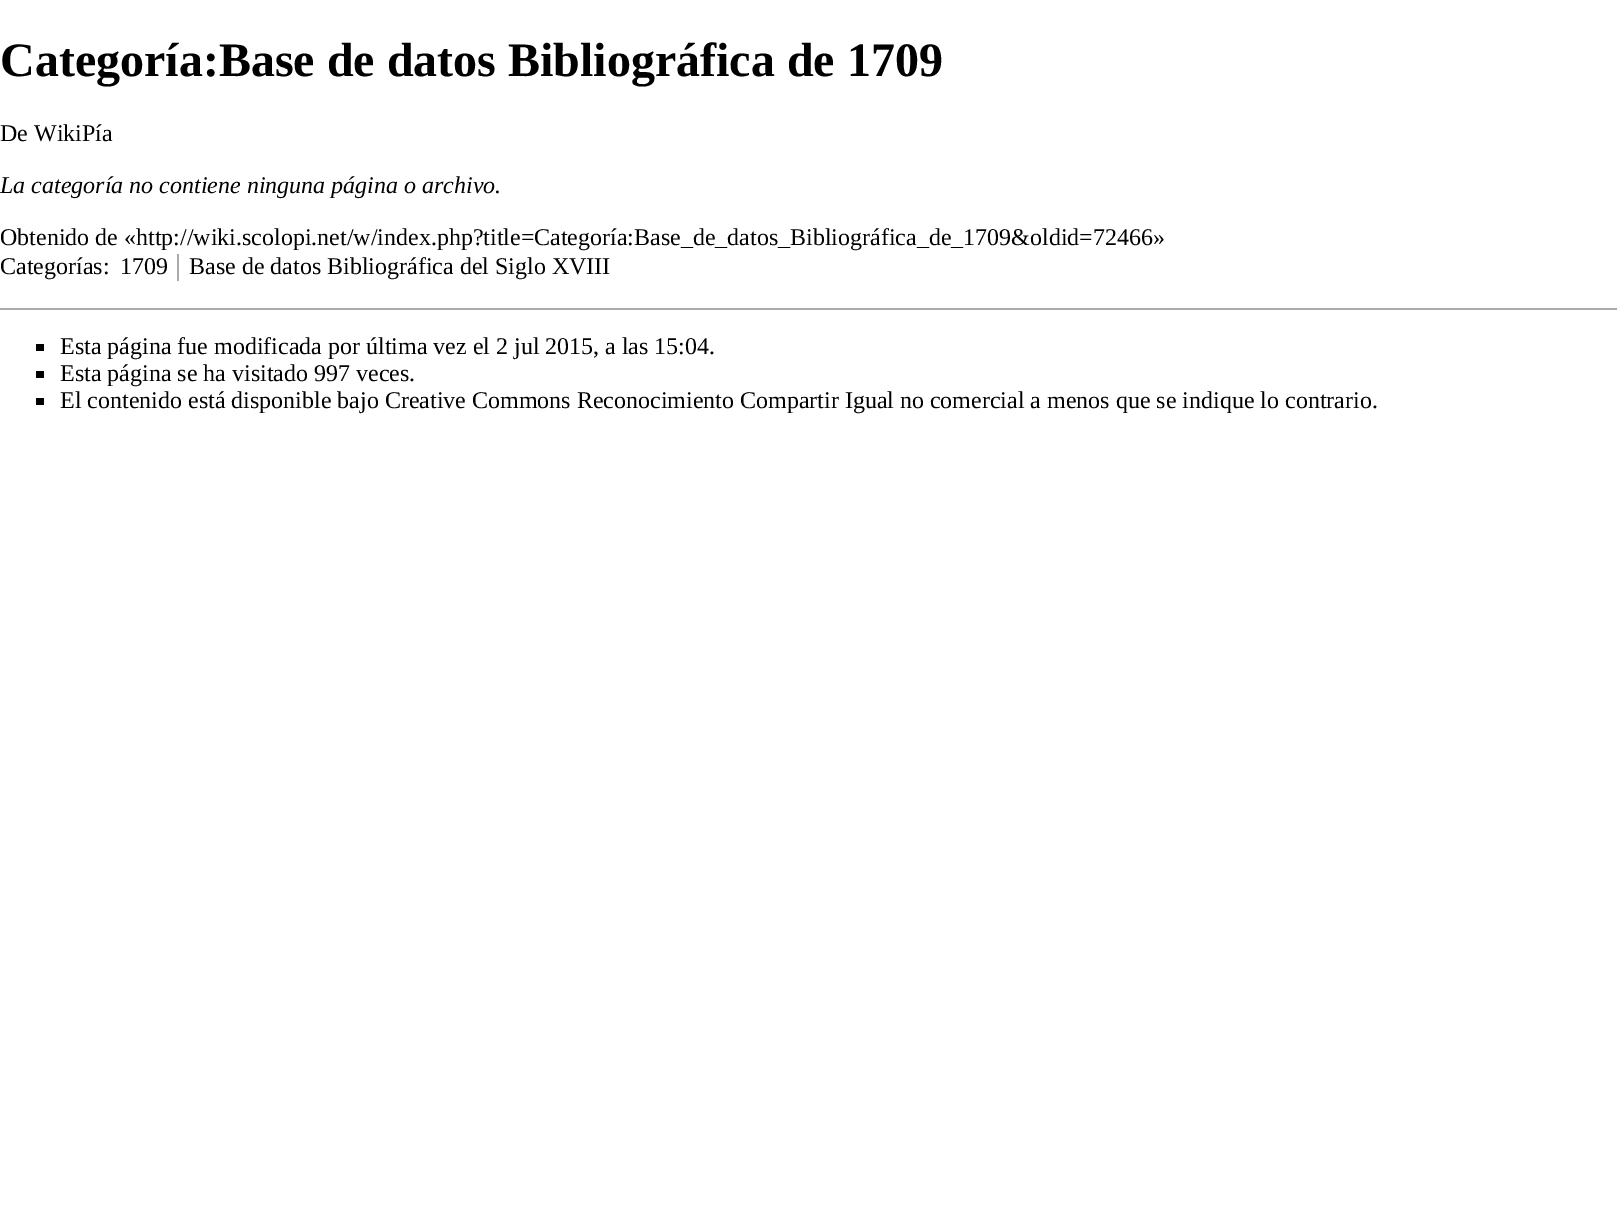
%!PS-Adobe-3.0
%%BoundingBox: 0 0 1617 1222
%%LanguageLevel: 3
%%Pages: 1
%%EndComments
%%BeginProlog
/setink { 3 { 255 div 3 1 roll } repeat setrgbcolor } def
/usefont { [ exch dup neg 0 0 3 -1 roll 0 0 ] selectfont } def
/drawtext { setink usefont moveto show } def
/fillbox { setink rectfill } def
%%EndProlog
%%BeginSetup
<< /PageSize [1617 1222] >> setpagedevice
%%EndSetup
%%Page: 1 1
0 1222 translate 1 -1 scale
4 setmiterlimit
0 0 1617 1222 255 255 255 fillbox
(Categoría:Base de datos Bibliográfica de 1709) 0 76 /LiberationSerif-Bold 48 0 0 0 drawtext
(De WikiPía) 0 141 /LiberationSerif-Regular 24 0 0 0 drawtext
(La categoría no contiene ninguna página o archivo.) 0 193 /LiberationSerif-Italic 24 0 0 0 drawtext
(Obtenido de «http://wiki.scolopi.net/w/index.php?title=Categoría:Base_de_datos_Bibliográfica_de_1709&oldid=72466») 0 245 /LiberationSerif-Regular 24 0 0 0 drawtext
(Categorías:) 0 274 /LiberationSerif-Regular 24 0 0 0 drawtext
(1709) 120 274 /LiberationSerif-Regular 24 0 0 0 drawtext
177 254 2 27 170 170 170 fillbox
(Base de datos Bibliográfica del Siglo XVIII) 189 274 /LiberationSerif-Regular 24 0 0 0 drawtext
0 308 1617 2 170 170 170 fillbox
36 344 8 7 0 0 0 fillbox
(Esta página fue modificada por última vez el 2 jul 2015, a las 15:04.) 60 354 /LiberationSerif-Regular 24 0 0 0 drawtext
36 371 8 7 0 0 0 fillbox
(Esta página se ha visitado 997 veces.) 60 381 /LiberationSerif-Regular 24 0 0 0 drawtext
36 398 8 7 0 0 0 fillbox
(El contenido está disponible bajo Creative Commons Reconocimiento Compartir Igual no comercial a menos que se indique lo contrario.) 60 408 /LiberationSerif-Regular 24 0 0 0 drawtext
showpage
%%EOF
